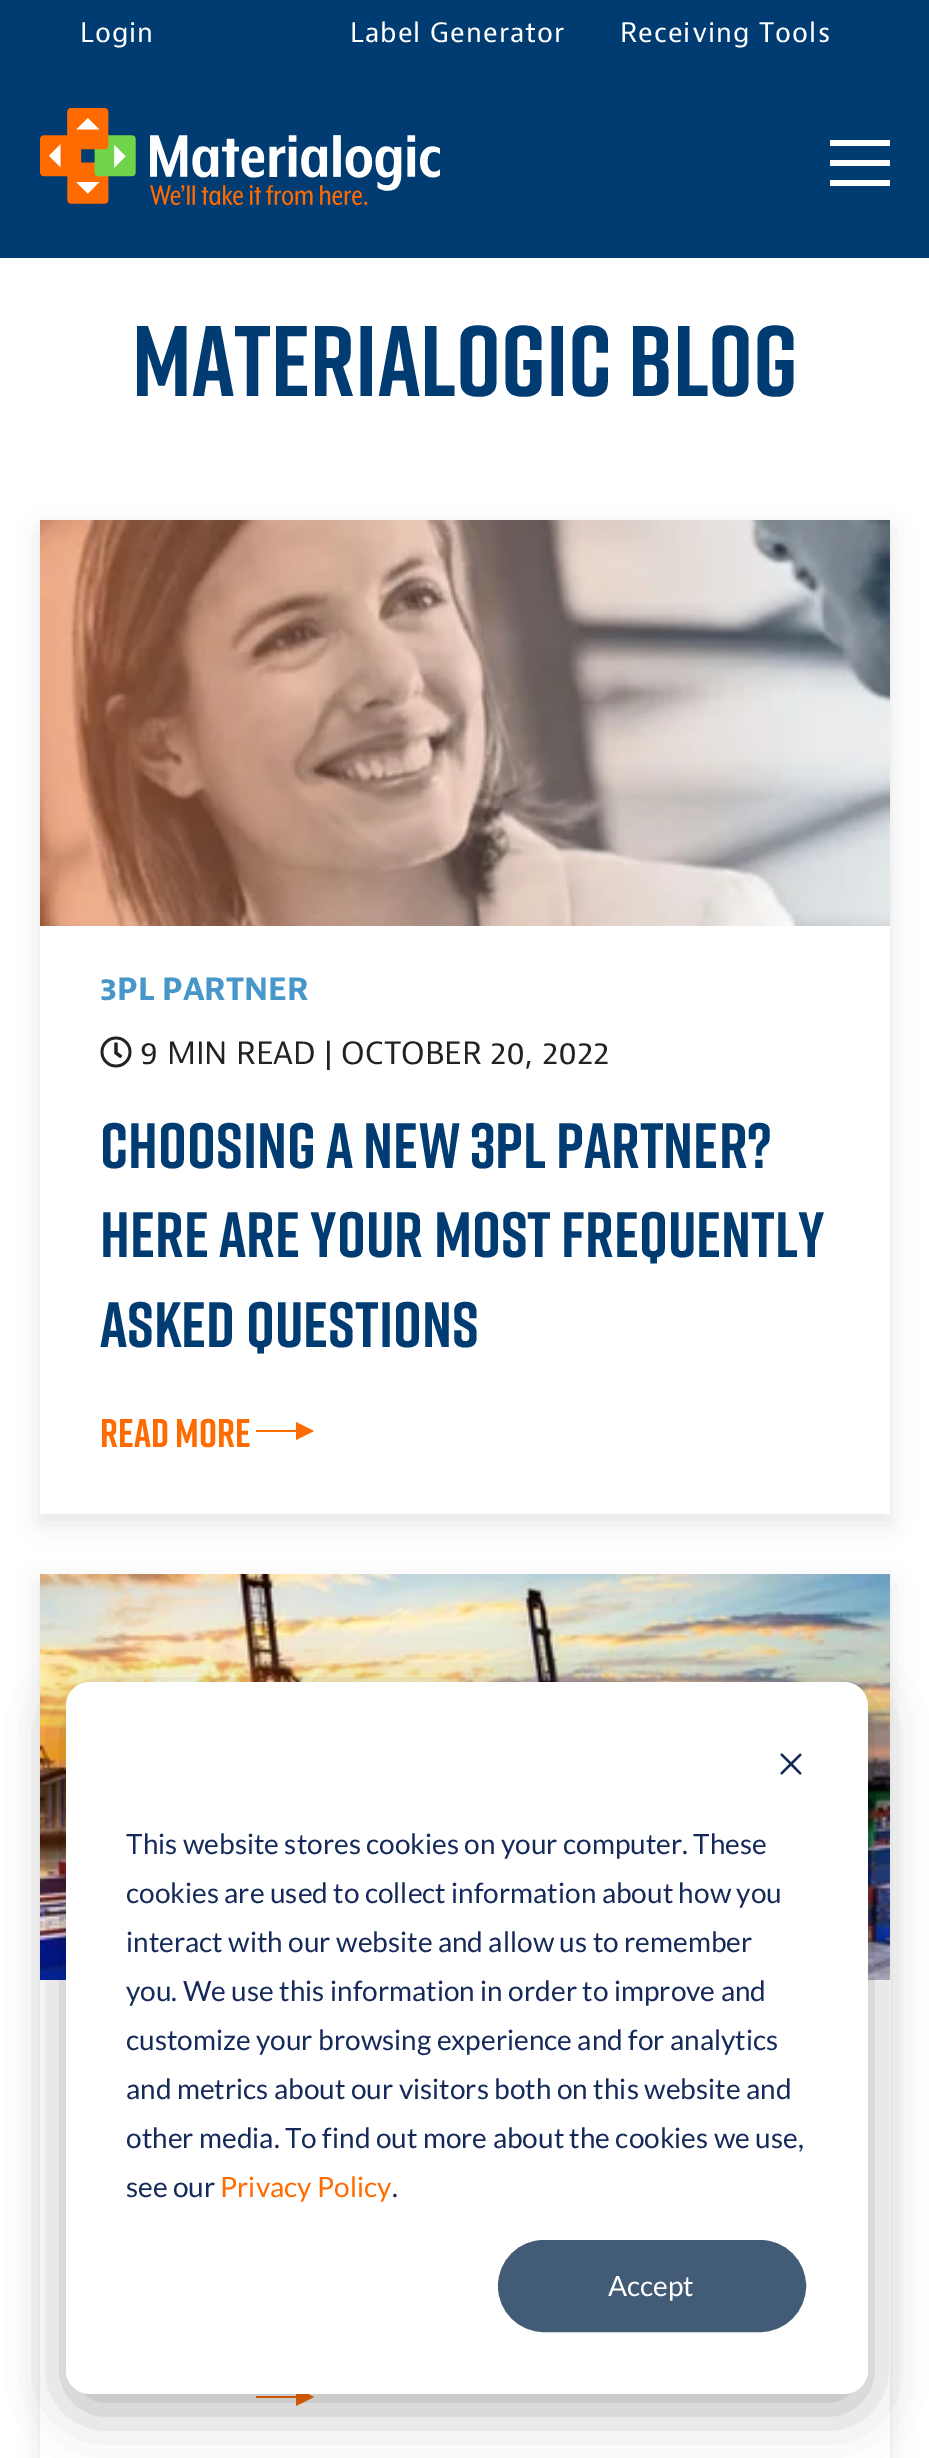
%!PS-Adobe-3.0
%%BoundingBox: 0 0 929 2458
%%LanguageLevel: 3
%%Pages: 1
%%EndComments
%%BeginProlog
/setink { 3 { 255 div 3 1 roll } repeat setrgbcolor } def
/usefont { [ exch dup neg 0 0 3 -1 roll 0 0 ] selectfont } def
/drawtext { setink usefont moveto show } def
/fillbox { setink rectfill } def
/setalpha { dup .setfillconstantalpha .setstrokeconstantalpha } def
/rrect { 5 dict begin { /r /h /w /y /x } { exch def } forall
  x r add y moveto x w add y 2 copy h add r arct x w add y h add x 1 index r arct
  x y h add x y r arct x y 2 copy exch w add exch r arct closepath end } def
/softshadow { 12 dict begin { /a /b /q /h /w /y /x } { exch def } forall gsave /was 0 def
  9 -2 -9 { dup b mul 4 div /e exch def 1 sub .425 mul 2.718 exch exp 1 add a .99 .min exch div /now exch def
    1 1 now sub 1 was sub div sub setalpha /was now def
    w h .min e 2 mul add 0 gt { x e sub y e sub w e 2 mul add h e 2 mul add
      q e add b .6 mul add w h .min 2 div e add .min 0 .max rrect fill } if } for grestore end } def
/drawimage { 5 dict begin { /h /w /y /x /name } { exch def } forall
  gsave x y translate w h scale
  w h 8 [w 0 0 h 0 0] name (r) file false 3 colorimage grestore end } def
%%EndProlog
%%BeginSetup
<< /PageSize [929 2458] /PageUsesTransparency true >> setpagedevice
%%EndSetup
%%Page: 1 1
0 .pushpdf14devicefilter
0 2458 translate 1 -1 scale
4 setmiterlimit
0 0 929 2458 255 255 255 fillbox
0 0 929 258 0 59 113 fillbox
/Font-Regular 28 usefont
255 255 255 setink
80 42 moveto 1 0 (Login) ashow
350 42 moveto 1 0 (Label Generator) ashow
620 42 moveto 1 0 (Receiving Tools) ashow
(assets/img1.rgb) 40 108 400 98 drawimage
830 160 60 6 255 255 255 fillbox
830 140 60 6 255 255 255 fillbox
830 180 60 6 255 255 255 fillbox
(Materialogic Blog) 132 396 /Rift-Bold 100 0 59 113 drawtext
gsave
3 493 moveto 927 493 lineto 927 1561 lineto 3 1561 lineto closepath 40 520 moveto 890 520 lineto 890 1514 lineto 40 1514 lineto closepath eoclip newpath
47 47 47 setink
40 530 850 994 0 12 0.13 softshadow
grestore
(assets/img2.rgb) 40 520 850 406 drawimage
(3PL PARTNER) 100 1000 /Font-Bold 32 71 152 200 drawtext
(assets/img3.rgb) 100 1036 32 32 drawimage
(9 MIN READ | OCTOBER 20, 2022) 140 1064 /Font-Regular 32 33 35 34 drawtext
(Choosing a New 3PL Partner?) 100 1168 /Rift-Bold 64 0 59 113 drawtext
(Here Are Your Most Frequently) 100 1257 /Rift-Bold 64 0 59 113 drawtext
(Asked Questions) 100 1347 /Rift-Bold 64 0 59 113 drawtext
(Read More) 100 1447 /Rift-Bold 40 255 107 0 drawtext
296 1422 moveto 314 1431 lineto 296 1440 lineto 296 1432 lineto 256 1432 lineto 256 1430 lineto 296 1430 lineto closepath fill
gsave
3 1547 moveto 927 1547 lineto 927 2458 lineto 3 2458 lineto closepath 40 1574 moveto 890 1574 lineto 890 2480 lineto 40 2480 lineto closepath eoclip newpath
47 47 47 setink
40 1584 850 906 0 12 0.13 softshadow
grestore
(assets/img4.rgb) 40 1574 850 406 drawimage
296 2388 moveto 314 2397 lineto 296 2406 lineto 296 2398 lineto 256 2398 lineto 256 2396 lineto 296 2396 lineto closepath fill
0 0 0 setink
66 1698 802 712 24 28 0.28 softshadow
255 255 255 setink
66 1682 802 712 24 rrect fill
(assets/img5.rgb) 780 1753 22 22 drawimage
(This website stores cookies on your computer. These) 126 1854 /Lato-Regular 28 21 41 90 drawtext
(cookies are used to collect information about how you) 126 1903 /Lato-Regular 28 21 41 90 drawtext
(interact with our website and allow us to remember) 126 1952 /Lato-Regular 28 21 41 90 drawtext
(you. We use this information in order to improve and) 126 2001 /Lato-Regular 28 21 41 90 drawtext
(customize your browsing experience and for analytics) 126 2050 /Lato-Regular 28 21 41 90 drawtext
(and metrics about our visitors both on this website and) 126 2099 /Lato-Regular 28 21 41 90 drawtext
(other media. To find out more about the cookies we use,) 126 2148 /Lato-Regular 28 21 41 90 drawtext
(see our) 126 2197 /Lato-Regular 28 21 41 90 drawtext
(Privacy Policy) 220 2197 /Lato-Regular 28 255 107 0 drawtext
(.) 392 2197 /Lato-Regular 28 21 41 90 drawtext
66 91 118 setink
499 2241 306 90 45 rrect gsave fill grestore
2 setlinewidth
stroke
(Accept) 608 2296 /Lato-Regular 28 255 255 255 drawtext
.poppdf14devicefilter showpage
%%EOF
